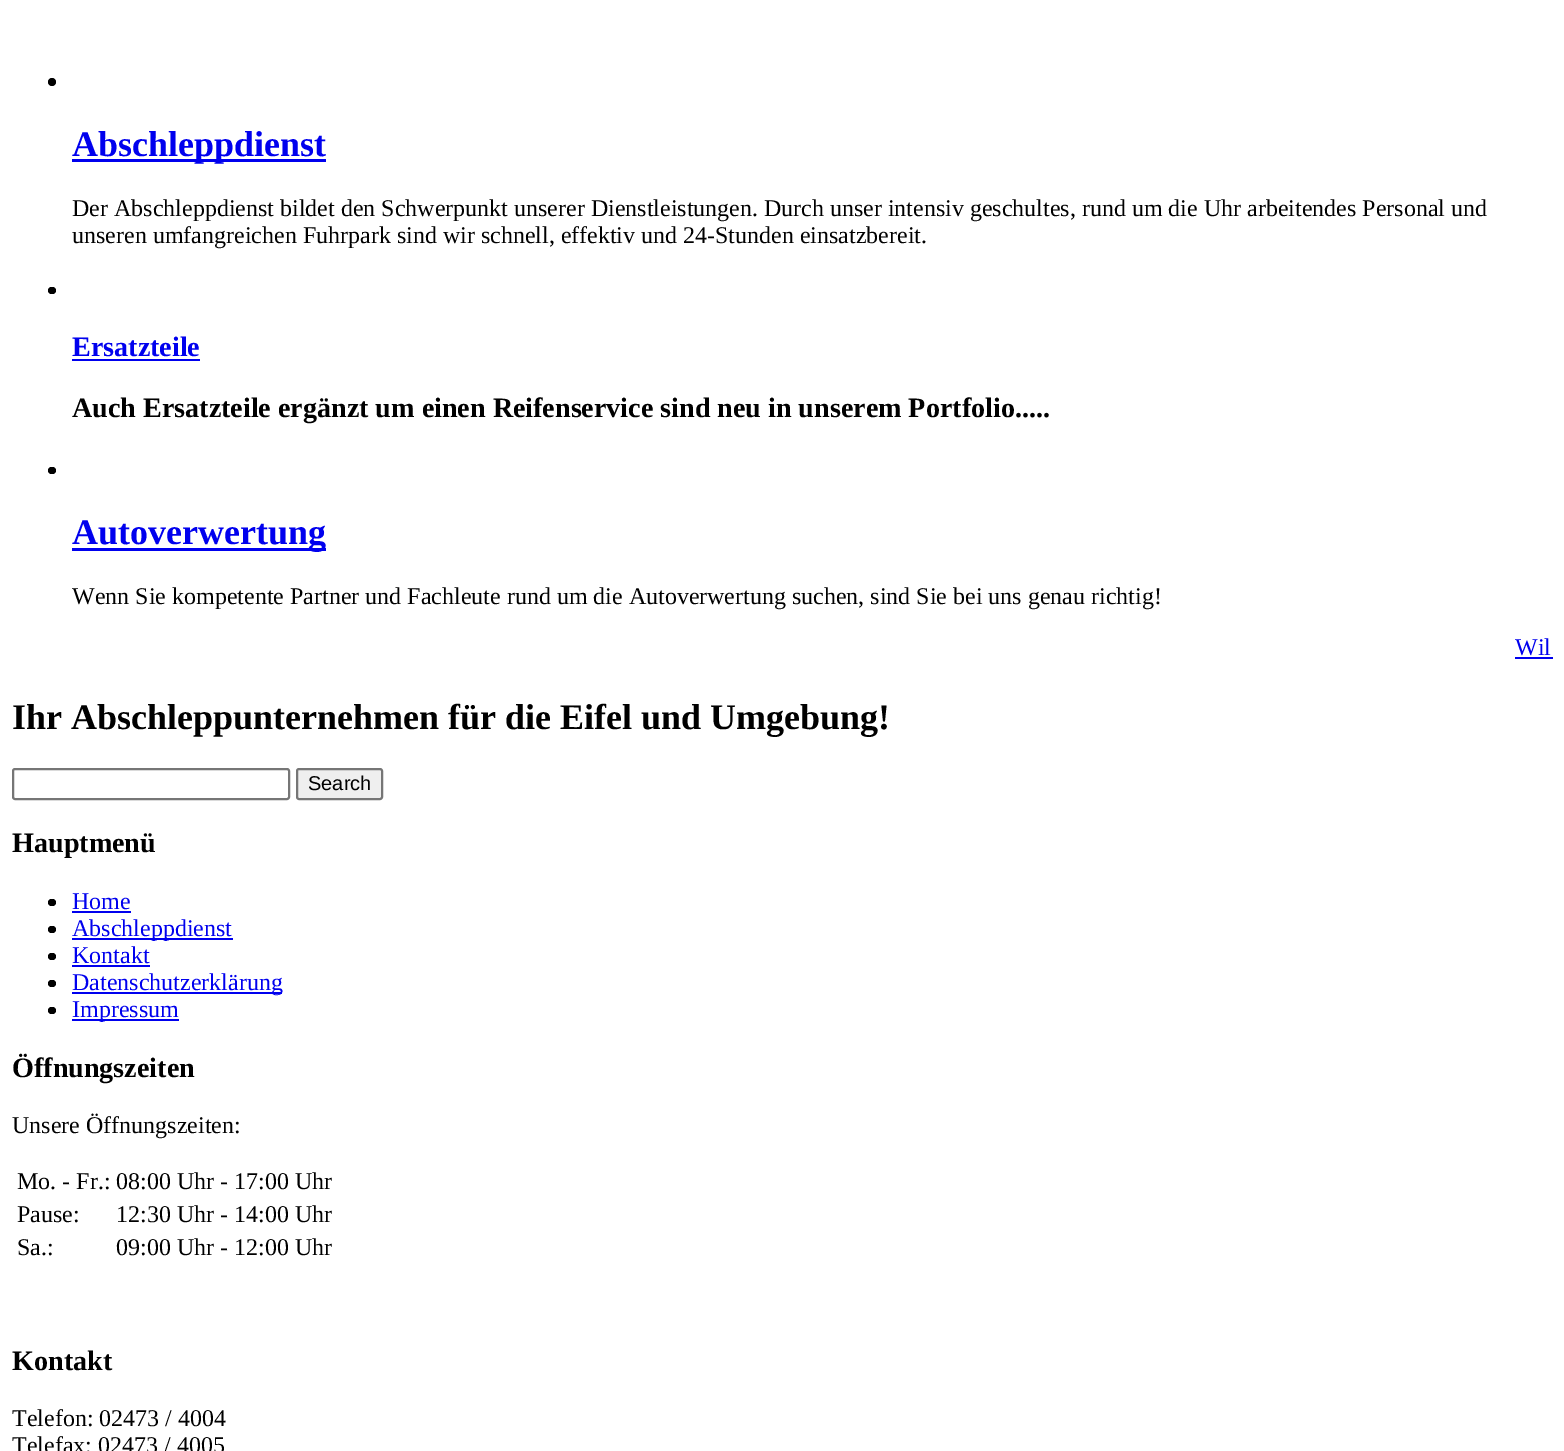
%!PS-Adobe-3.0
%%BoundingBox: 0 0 1564 1451
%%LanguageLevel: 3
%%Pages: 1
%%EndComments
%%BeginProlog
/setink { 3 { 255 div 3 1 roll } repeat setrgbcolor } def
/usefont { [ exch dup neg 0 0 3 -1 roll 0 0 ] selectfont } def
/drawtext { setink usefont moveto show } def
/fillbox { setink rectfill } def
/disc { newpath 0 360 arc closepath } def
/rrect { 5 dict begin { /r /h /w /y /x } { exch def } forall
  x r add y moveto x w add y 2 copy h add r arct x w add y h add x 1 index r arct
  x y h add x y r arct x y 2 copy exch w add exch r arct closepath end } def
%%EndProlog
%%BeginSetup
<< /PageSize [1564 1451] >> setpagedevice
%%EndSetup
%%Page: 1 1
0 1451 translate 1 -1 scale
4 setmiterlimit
0 0 1564 1451 255 255 255 fillbox
0 0 0 setink
52 82 4 disc fill
72 159 254 3 0 0 238 fillbox
(Abschleppdienst) 72 156 /LiberationSerif-Bold 36 0 0 238 drawtext
(Der Abschleppdienst bildet den Schwerpunkt unserer Dienstleistungen. Durch unser intensiv geschultes, rund um die Uhr arbeitendes Personal und) 72 216 /LiberationSerif-Regular 24 0 0 0 drawtext
(unseren umfangreichen Fuhrpark sind wir schnell, effektiv und 24-Stunden einsatzbereit.) 72 243 /LiberationSerif-Regular 24 0 0 0 drawtext
48 287 8 7 3.5 rrect fill
(Ersatzteile) 72 356 /LiberationSerif-Bold 28.1 0 0 238 drawtext
72 359 128 2 0 0 238 fillbox
(Auch Ersatzteile ergänzt um einen Reifenservice sind neu in unserem Portfolio.....) 72 417 /LiberationSerif-Bold 28.1 0 0 0 drawtext
48 467 8 7 3.5 rrect fill
72 548 254 3 0 0 238 fillbox
(Autoverwertung) 72 544 /LiberationSerif-Bold 36 0 0 238 drawtext
(Wenn Sie kompetente Partner und Fachleute rund um die Autoverwertung suchen, sind Sie bei uns genau richtig!) 72 604 /LiberationSerif-Regular 24 0 0 0 drawtext
(Wil) 1515 655 /LiberationSerif-Regular 24 0 0 238 drawtext
1515 657 38 2 0 0 238 fillbox
(Ihr Abschleppunternehmen für die Eifel und Umgebung!) 12 729 /LiberationSerif-Bold 36 0 0 0 drawtext
118 118 118 setink
2 setlinewidth
13 769 276 30 2 rrect stroke
239 239 239 setink
297 769 85 30 2 rrect gsave fill grestore
118 118 118 setink
stroke
(Search) 308 790 /LiberationSans-Regular 20 0 0 0 drawtext
(Hauptmenü) 12 852 /LiberationSerif-Bold 28.1 0 0 0 drawtext
48 899 8 7 3.5 rrect fill
(Home) 72 909 /LiberationSerif-Regular 24 0 0 238 drawtext
72 911 59 2 0 0 238 fillbox
0 0 0 setink
48 926 8 7 3.5 rrect fill
72 938 161 2 0 0 238 fillbox
(Abschleppdienst) 72 936 /LiberationSerif-Regular 24 0 0 238 drawtext
0 0 0 setink
48 953 8 7 3.5 rrect fill
(Kontakt) 72 963 /LiberationSerif-Regular 24 0 0 238 drawtext
72 965 78 2 0 0 238 fillbox
0 0 0 setink
48 980 8 7 3.5 rrect fill
72 992 210 2 0 0 238 fillbox
(Datenschutzerklärung) 72 990 /LiberationSerif-Regular 24 0 0 238 drawtext
0 0 0 setink
48 1007 8 7 3.5 rrect fill
72 1019 107 2 0 0 238 fillbox
(Impressum) 72 1017 /LiberationSerif-Regular 24 0 0 238 drawtext
(Öffnungszeiten) 12 1077 /LiberationSerif-Bold 28.1 0 0 0 drawtext
(Unsere Öffnungszeiten:) 12 1133 /LiberationSerif-Regular 24 0 0 0 drawtext
(Mo. - Fr.: 08:00 Uhr - 17:00 Uhr) 17 1189 /LiberationSerif-Regular 24 0 0 0 drawtext
(Pause:) 17 1222 /LiberationSerif-Regular 24 0 0 0 drawtext
(12:30 Uhr - 14:00 Uhr) 116 1222 /LiberationSerif-Regular 24 0 0 0 drawtext
(Sa.:) 17 1255 /LiberationSerif-Regular 24 0 0 0 drawtext
(09:00 Uhr - 12:00 Uhr) 116 1255 /LiberationSerif-Regular 24 0 0 0 drawtext
(Kontakt) 12 1370 /LiberationSerif-Bold 28.1 0 0 0 drawtext
(Telefon: 02473 / 4004) 12 1426 /LiberationSerif-Regular 24 0 0 0 drawtext
(Telefax: 02473 / 4005) 12 1453 /LiberationSerif-Regular 24 0 0 0 drawtext
showpage
%%EOF
